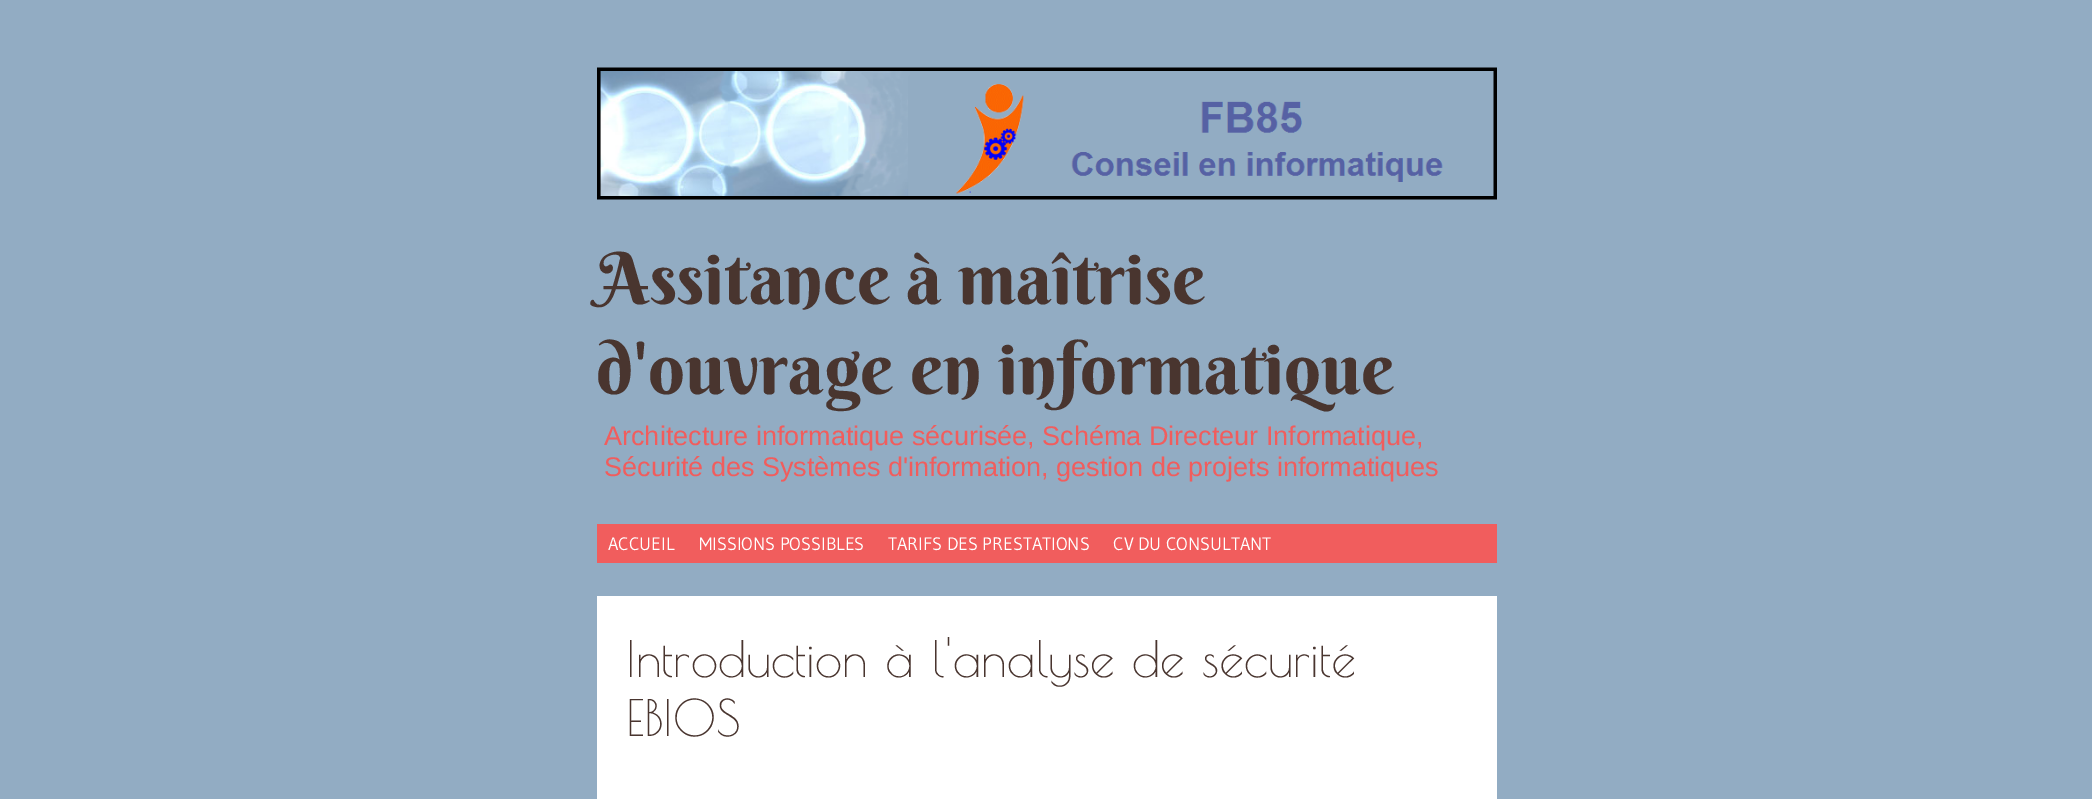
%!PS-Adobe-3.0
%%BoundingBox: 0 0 2092 799
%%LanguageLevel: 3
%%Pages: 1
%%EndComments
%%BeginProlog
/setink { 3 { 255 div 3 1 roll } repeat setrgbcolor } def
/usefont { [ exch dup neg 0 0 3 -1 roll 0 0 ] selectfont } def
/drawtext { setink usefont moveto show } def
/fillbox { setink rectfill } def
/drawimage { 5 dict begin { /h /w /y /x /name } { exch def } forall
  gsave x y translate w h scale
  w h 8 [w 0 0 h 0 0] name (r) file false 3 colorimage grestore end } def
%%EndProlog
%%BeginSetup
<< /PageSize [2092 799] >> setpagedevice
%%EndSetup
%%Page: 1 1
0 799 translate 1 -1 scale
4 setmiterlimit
0 0 2092 799 146 172 195 fillbox
(assets/img1.rgb) 597 67 900 133 drawimage
(Assitance à maîtrise) 596 304 /BerkshireSwash-Regular 72 73 53 47 drawtext
(d'ouvrage en informatique) 596 394 /BerkshireSwash-Regular 72 73 53 47 drawtext
(Architecture informatique sécurisée, Schéma Directeur Informatique,) 604 445 /LiberationSans-Regular 27 241 93 93 drawtext
(Sécurité des Systèmes d'information, gestion de projets informatiques) 604 476 /LiberationSans-Regular 27 241 93 93 drawtext
597 524 900 39 241 93 93 fillbox
(ACCUEIL) 608 550 /Gudea-Regular 18 255 255 255 drawtext
(MISSIONS POSSIBLES) 699 550 /Gudea-Regular 18 255 255 255 drawtext
(TARIFS DES PRESTATIONS) 888 550 /Gudea-Regular 18 255 255 255 drawtext
(CV DU CONSULTANT) 1113 550 /Gudea-Regular 18 255 255 255 drawtext
597 596 900 203 255 255 255 fillbox
(Introduction à l'analyse de sécurité) 626 677 /PoiretOne-Regular 49.5 73 53 47 drawtext
(EBIOS) 626 736 /PoiretOne-Regular 49.5 73 53 47 drawtext
showpage
%%EOF
